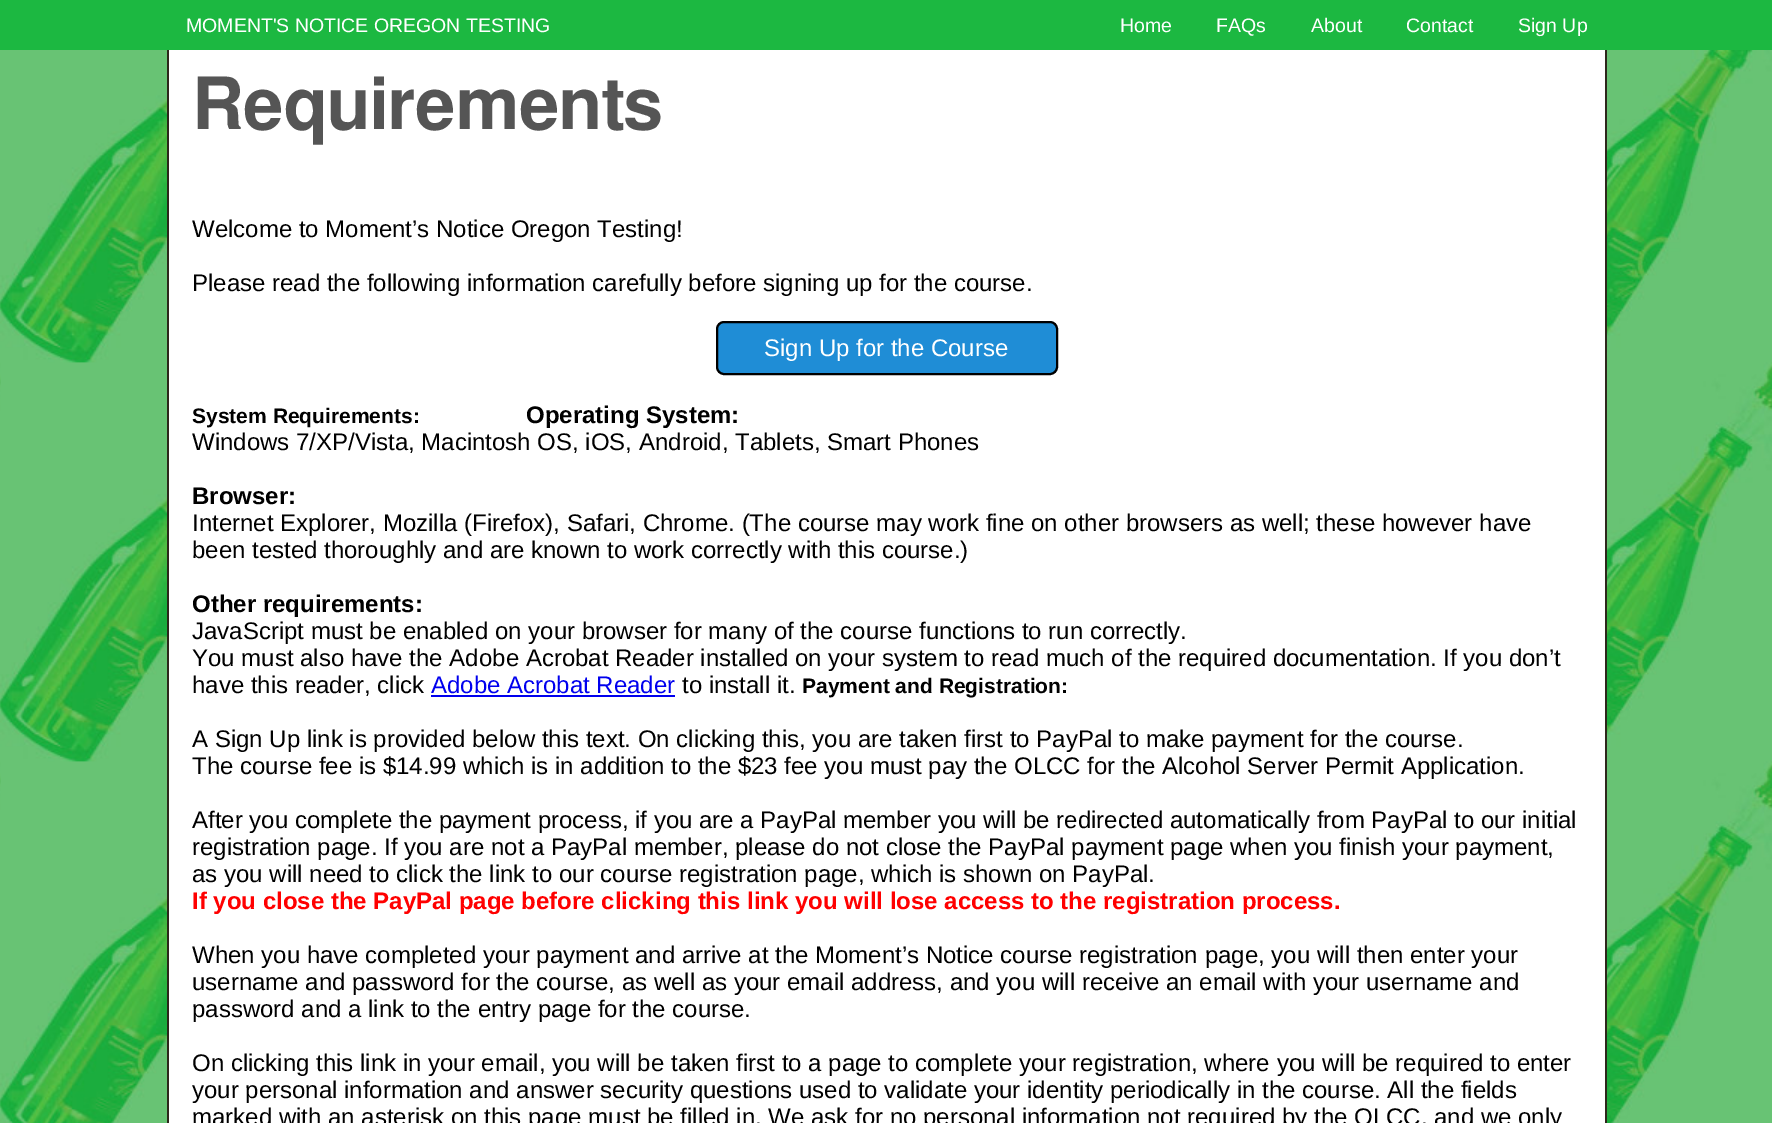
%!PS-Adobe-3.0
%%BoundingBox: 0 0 1772 1123
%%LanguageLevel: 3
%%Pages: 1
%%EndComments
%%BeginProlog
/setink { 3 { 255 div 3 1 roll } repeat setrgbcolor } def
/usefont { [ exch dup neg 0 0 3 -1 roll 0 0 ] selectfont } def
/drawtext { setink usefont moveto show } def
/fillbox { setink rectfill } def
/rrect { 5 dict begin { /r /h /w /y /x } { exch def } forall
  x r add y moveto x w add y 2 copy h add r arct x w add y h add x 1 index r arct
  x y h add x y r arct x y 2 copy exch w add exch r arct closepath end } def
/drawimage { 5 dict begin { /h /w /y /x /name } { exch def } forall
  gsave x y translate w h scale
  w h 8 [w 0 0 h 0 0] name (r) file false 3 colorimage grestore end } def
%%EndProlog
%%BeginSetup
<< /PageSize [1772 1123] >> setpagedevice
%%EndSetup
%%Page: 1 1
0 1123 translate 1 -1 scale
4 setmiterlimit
0 0 1772 1123 255 255 255 fillbox
(assets/img1.rgb) 0 50 1772 1073 drawimage
0 0 1772 50 28 184 65 fillbox
(MOMENT'S NOTICE OREGON TESTING) 186 32 /LiberationSans-Regular 19.5 255 255 255 drawtext
(Home) 1120 32 /LiberationSans-Regular 19.5 255 255 255 drawtext
(FAQs) 1216 32 /LiberationSans-Regular 19.5 255 255 255 drawtext
(About) 1311 32 /LiberationSans-Regular 19.5 255 255 255 drawtext
(Contact) 1406 32 /LiberationSans-Regular 19.5 255 255 255 drawtext
(Sign Up) 1518 32 /LiberationSans-Regular 19.5 255 255 255 drawtext
169 50 1436 1073 255 255 255 fillbox
1605 50 2 1073 45 39 27 fillbox
167 50 2 1073 45 39 27 fillbox
/FreeSans-SemiBold 72 usefont
85 85 85 setink
192 129 moveto -1.5 0 (Requirements) ashow
(Welcome to Moment’s Notice Oregon Testing!) 192 237 /LiberationSans-Regular 24 0 0 0 drawtext
(Please read the following information carefully before signing up for the course.) 192 291 /LiberationSans-Regular 24 0 0 0 drawtext
31 141 214 setink
717 322 340 52 7 rrect gsave fill grestore
0 0 0 setink
2 setlinewidth
stroke
(Sign Up for the Course) 764 356 /LiberationSans-Regular 24 255 255 255 drawtext
(System Requirements:) 192 423 /LiberationSans-Bold 21 0 0 0 drawtext
(Operating System:) 526 423 /LiberationSans-Bold 24 0 0 0 drawtext
(Windows 7/XP/Vista, Macintosh OS, iOS, Android, Tablets, Smart Phones) 192 450 /LiberationSans-Regular 24 0 0 0 drawtext
(Browser:) 192 504 /LiberationSans-Bold 24 0 0 0 drawtext
(Internet Explorer, Mozilla \(Firefox\), Safari, Chrome. \(The course may work fine on other browsers as well; these however have) 192 531 /LiberationSans-Regular 24 0 0 0 drawtext
(been tested thoroughly and are known to work correctly with this course.\)) 192 558 /LiberationSans-Regular 24 0 0 0 drawtext
(Other requirements:) 192 612 /LiberationSans-Bold 24 0 0 0 drawtext
(JavaScript must be enabled on your browser for many of the course functions to run correctly.) 192 639 /LiberationSans-Regular 24 0 0 0 drawtext
(You must also have the Adobe Acrobat Reader installed on your system to read much of the required documentation. If you don’t) 192 666 /LiberationSans-Regular 24 0 0 0 drawtext
(have this reader, click) 192 693 /LiberationSans-Regular 24 0 0 0 drawtext
(Adobe Acrobat Reader) 431 693 /LiberationSans-Regular 24 0 0 238 drawtext
431 695 244 2 0 0 238 fillbox
(to install it.) 682 693 /LiberationSans-Regular 24 0 0 0 drawtext
(Payment and Registration:) 802 693 /LiberationSans-Bold 21 0 0 0 drawtext
(A Sign Up link is provided below this text. On clicking this, you are taken first to PayPal to make payment for the course.) 192 747 /LiberationSans-Regular 24 0 0 0 drawtext
(The course fee is $14.99 which is in addition to the $23 fee you must pay the OLCC for the Alcohol Server Permit Application.) 192 774 /LiberationSans-Regular 24 0 0 0 drawtext
(After you complete the payment process, if you are a PayPal member you will be redirected automatically from PayPal to our initial) 192 828 /LiberationSans-Regular 24 0 0 0 drawtext
(registration page. If you are not a PayPal member, please do not close the PayPal payment page when you finish your payment,) 192 855 /LiberationSans-Regular 24 0 0 0 drawtext
(as you will need to click the link to our course registration page, which is shown on PayPal.) 192 882 /LiberationSans-Regular 24 0 0 0 drawtext
(If you close the PayPal page before clicking this link you will lose access to the registration process.) 192 909 /LiberationSans-Bold 24 255 0 0 drawtext
(When you have completed your payment and arrive at the Moment’s Notice course registration page, you will then enter your) 192 963 /LiberationSans-Regular 24 0 0 0 drawtext
(username and password for the course, as well as your email address, and you will receive an email with your username and) 192 990 /LiberationSans-Regular 24 0 0 0 drawtext
(password and a link to the entry page for the course.) 192 1017 /LiberationSans-Regular 24 0 0 0 drawtext
(On clicking this link in your email, you will be taken first to a page to complete your registration, where you will be required to enter) 192 1071 /LiberationSans-Regular 24 0 0 0 drawtext
(your personal information and answer security questions used to validate your identity periodically in the course. All the fields) 192 1098 /LiberationSans-Regular 24 0 0 0 drawtext
(marked with an asterisk on this page must be filled in. We ask for no personal information not required by the OLCC, and we only) 192 1125 /LiberationSans-Regular 24 0 0 0 drawtext
showpage
%%EOF
